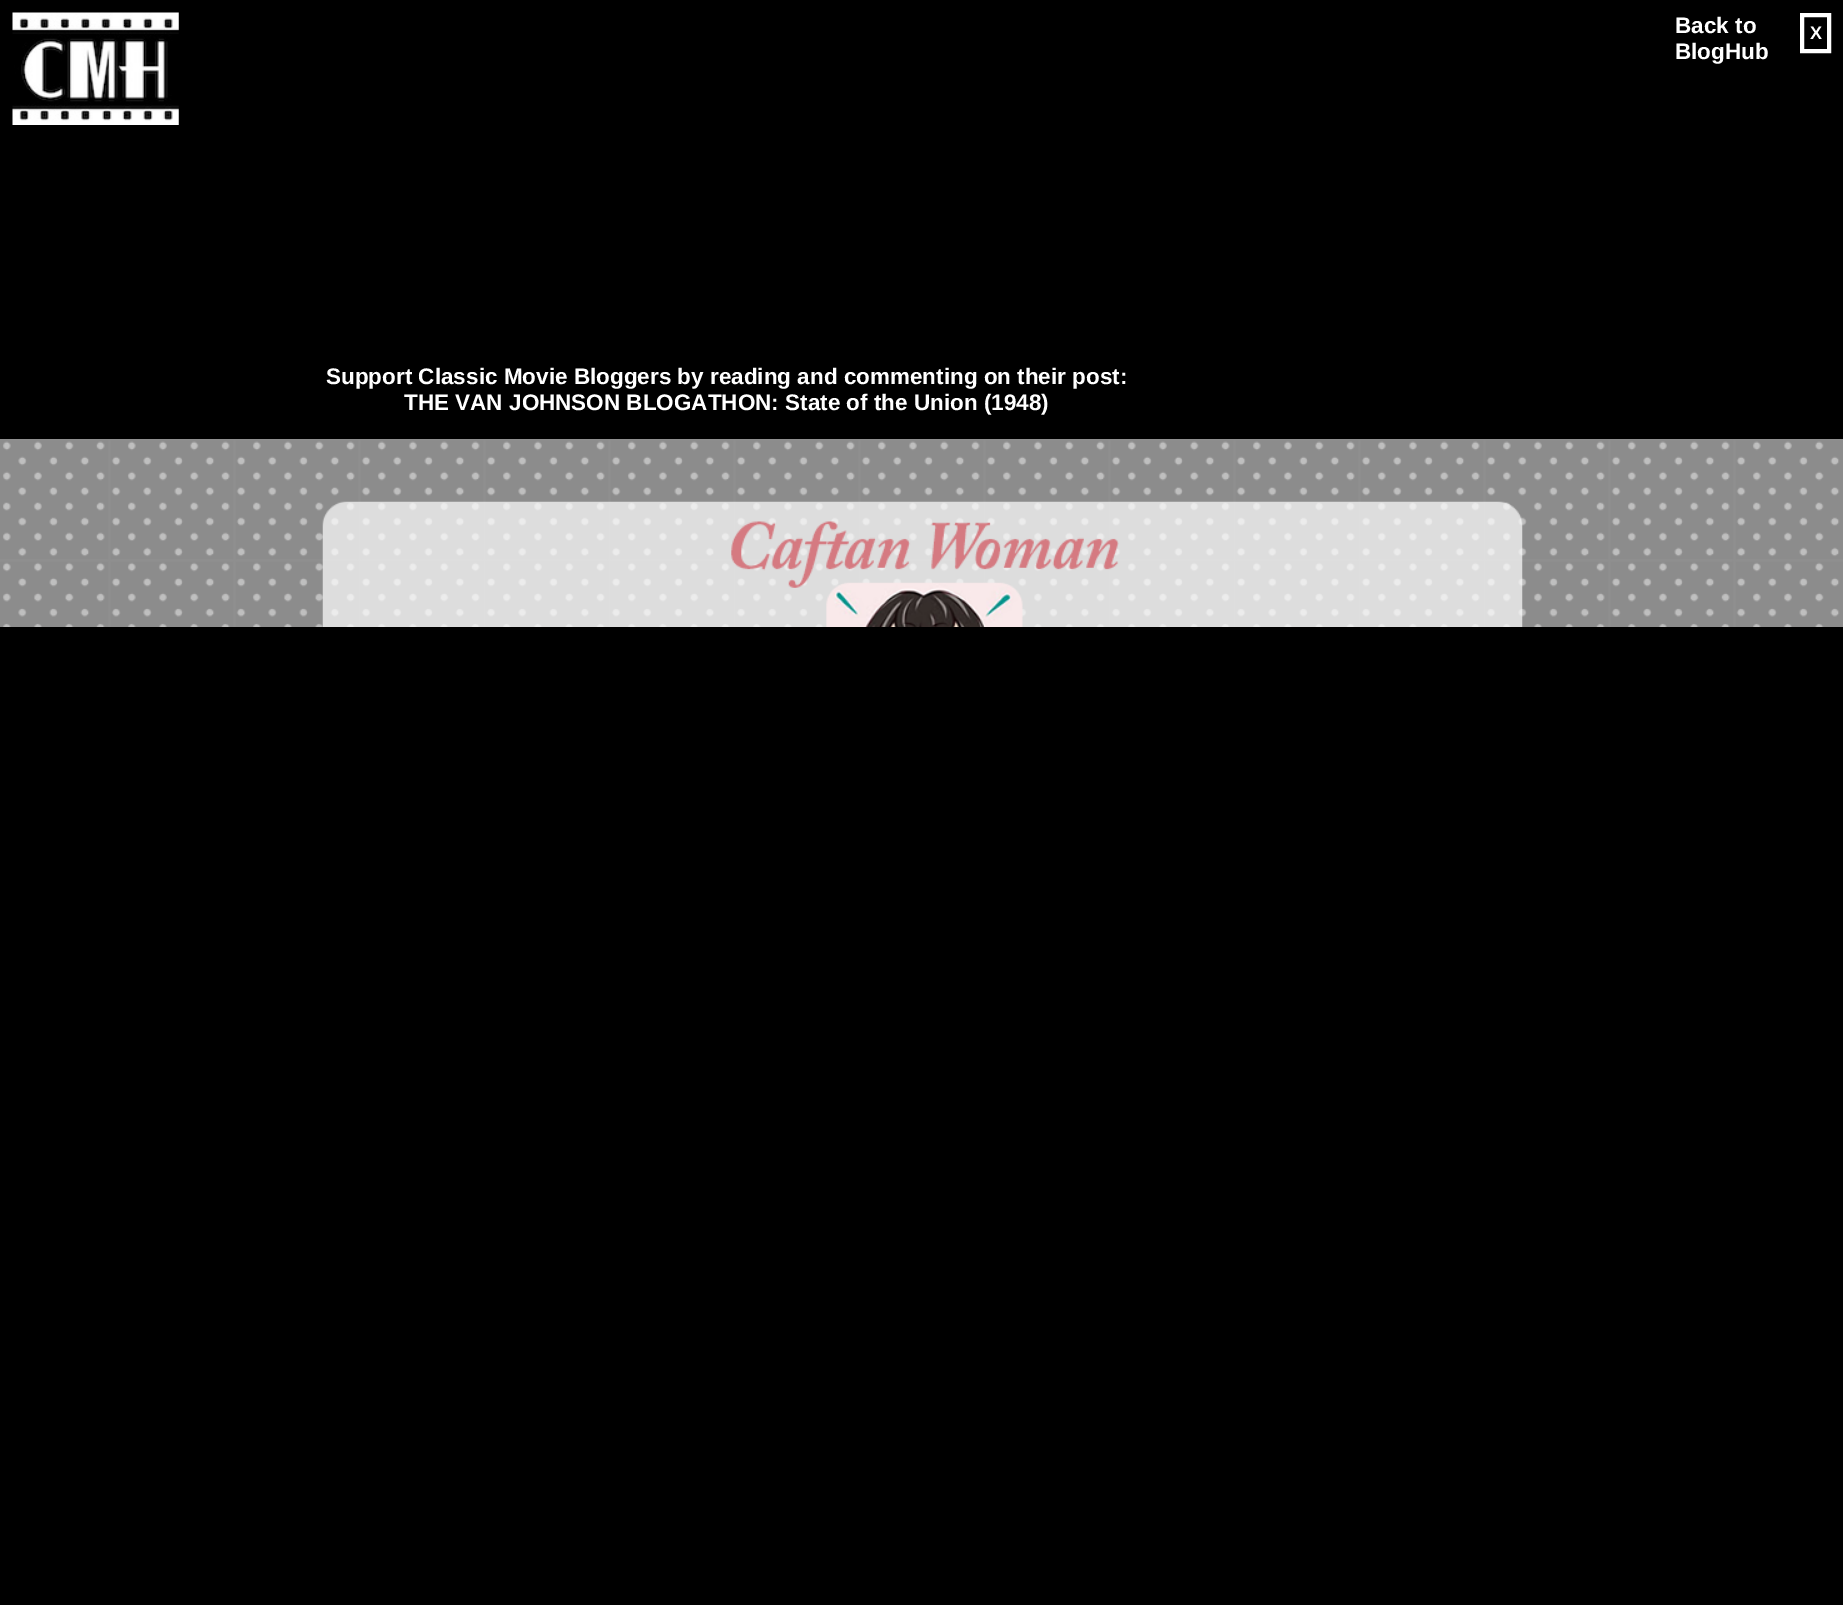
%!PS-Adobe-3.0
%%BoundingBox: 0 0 1843 1605
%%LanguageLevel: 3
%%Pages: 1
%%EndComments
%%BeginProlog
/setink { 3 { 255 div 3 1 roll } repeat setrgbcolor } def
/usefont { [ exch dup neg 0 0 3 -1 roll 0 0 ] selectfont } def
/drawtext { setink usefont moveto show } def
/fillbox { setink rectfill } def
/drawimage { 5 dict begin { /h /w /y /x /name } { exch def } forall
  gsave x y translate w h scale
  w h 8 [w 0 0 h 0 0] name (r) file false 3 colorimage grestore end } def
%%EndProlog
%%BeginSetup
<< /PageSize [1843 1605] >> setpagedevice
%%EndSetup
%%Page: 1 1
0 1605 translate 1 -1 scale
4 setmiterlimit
0 0 1843 1605 0 0 0 fillbox
(assets/img1.rgb) 12 12 167 113 drawimage
(Back to) 1675 33 /LiberationSans-Bold 22.5 255 255 255 drawtext
(BlogHub) 1675 59 /LiberationSans-Bold 22.5 255 255 255 drawtext
4 setlinewidth
1802 15 27 36 rectstroke
(X) 1810 39 /LiberationSans-Bold 18 255 255 255 drawtext
(Support Classic Movie Bloggers by reading and commenting on their post:) 326 384 /LiberationSans-Bold 22.5 255 255 255 drawtext
(THE VAN JOHNSON BLOGATHON: State of the Union \(1948\)) 404 410 /LiberationSans-Bold 22.5 255 255 255 drawtext
(assets/img2.rgb) 0 439 1843 188 drawimage
showpage
%%EOF
